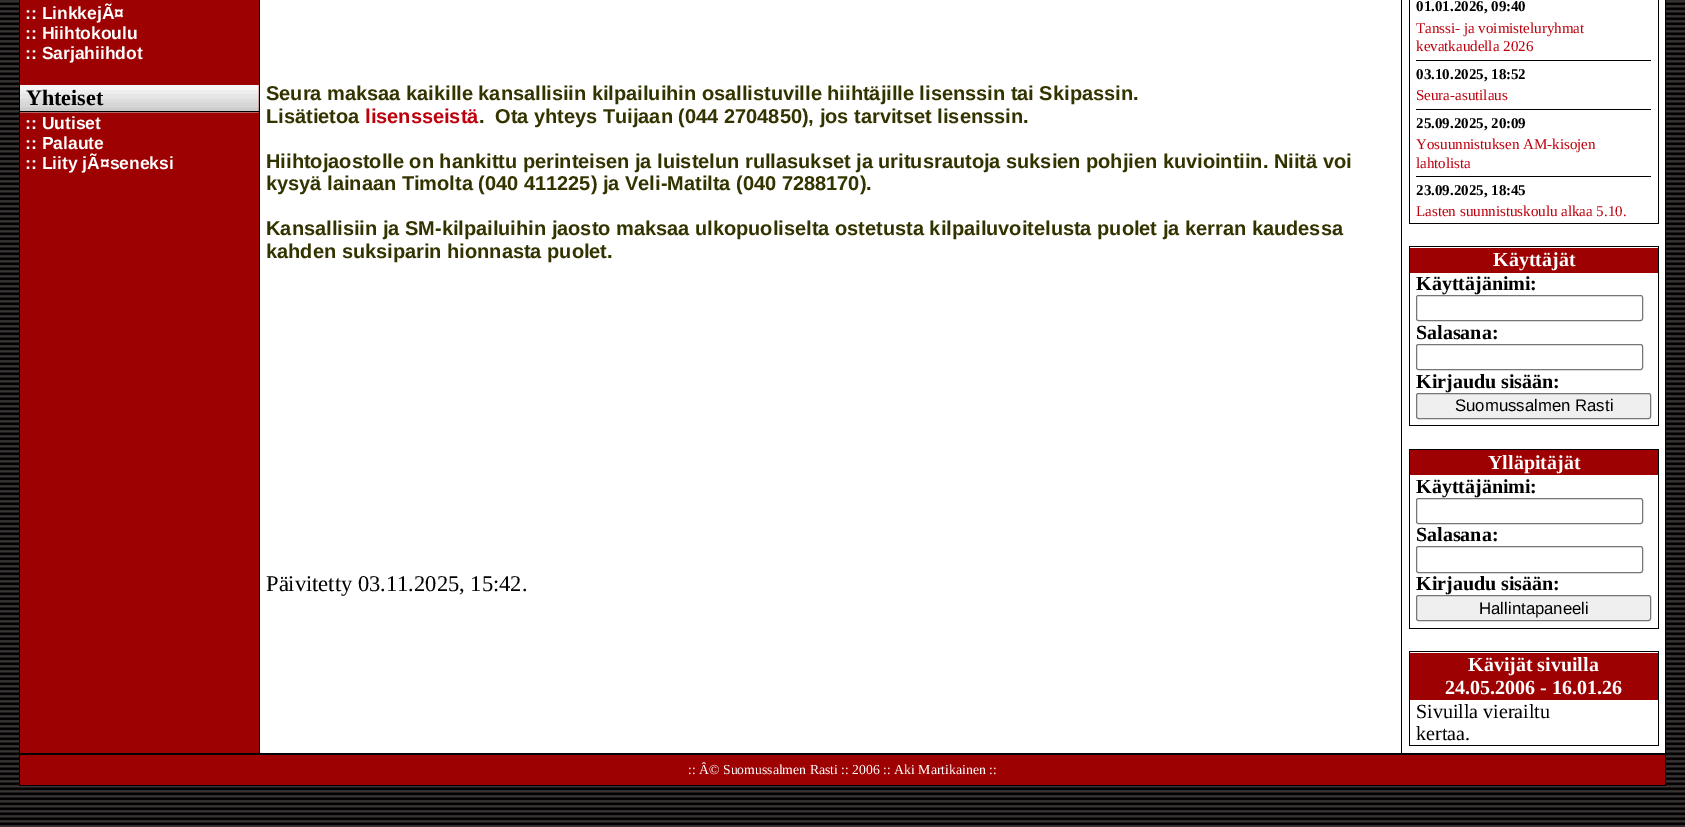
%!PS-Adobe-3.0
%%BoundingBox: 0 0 1685 827
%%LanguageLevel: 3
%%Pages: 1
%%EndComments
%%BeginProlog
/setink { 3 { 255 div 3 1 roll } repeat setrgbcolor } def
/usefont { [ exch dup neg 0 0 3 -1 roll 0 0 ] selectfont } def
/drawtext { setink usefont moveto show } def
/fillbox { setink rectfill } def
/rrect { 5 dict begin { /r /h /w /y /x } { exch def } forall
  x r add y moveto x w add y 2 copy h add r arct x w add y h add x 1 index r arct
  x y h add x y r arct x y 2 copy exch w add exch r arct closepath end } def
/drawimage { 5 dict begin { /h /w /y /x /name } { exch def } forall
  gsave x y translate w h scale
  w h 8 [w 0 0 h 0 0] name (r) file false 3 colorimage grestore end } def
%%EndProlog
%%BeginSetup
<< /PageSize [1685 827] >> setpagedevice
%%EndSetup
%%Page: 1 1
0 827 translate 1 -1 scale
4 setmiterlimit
0 0 1685 827 255 255 255 fillbox
(assets/img1.rgb) 0 0 1685 827 drawimage
1665 0 1 786 0 0 0 fillbox
19 785 1647 1 0 0 0 fillbox
19 0 1 786 0 0 0 fillbox
260 0 1405 753 255 255 255 fillbox
20 63 239 690 157 1 1 fillbox
20 0 239 63 157 1 1 fillbox
(:: LinkkejÃ¤) 25 19 /LiberationSans-Bold 17.5 255 255 255 drawtext
(:: Hiihtokoulu) 25 39 /LiberationSans-Bold 17.5 255 255 255 drawtext
(:: Sarjahiihdot) 25 59 /LiberationSans-Bold 17.5 255 255 255 drawtext
(assets/img2.rgb) 20 85 239 28 drawimage
20 111 239 1 0 0 0 fillbox
(Yhteiset) 26 105 /LiberationSerif-Bold 22 0 0 0 drawtext
(:: Uutiset) 25 129 /LiberationSans-Bold 17.5 255 255 255 drawtext
(:: Palaute) 25 149 /LiberationSans-Bold 17.5 255 255 255 drawtext
(:: Liity jÃ¤seneksi) 25 169 /LiberationSans-Bold 17.5 255 255 255 drawtext
1401 0 1 754 0 0 0 fillbox
259 0 1 754 0 0 0 fillbox
(Seura maksaa kaikille kansallisiin kilpailuihin osallistuville hiihtäjille lisenssin tai Skipassin.) 266 100 /LiberationSans-Bold 20 51 51 0 drawtext
(Lisätietoa) 266 123 /LiberationSans-Bold 20 51 51 0 drawtext
(lisensseistä) 365 123 /LiberationSans-Bold 20 189 0 12 drawtext
(.) 479 123 /LiberationSans-Bold 20 51 51 0 drawtext
(Ota yhteys Tuijaan \(044 2704850\), jos tarvitset lisenssin.) 495 123 /LiberationSans-Bold 20 51 51 0 drawtext
(Hiihtojaostolle on hankittu perinteisen ja luistelun rullasukset ja uritusrautoja suksien pohjien kuviointiin. Niitä voi) 266 168 /LiberationSans-Bold 20 51 51 0 drawtext
(kysyä lainaan Timolta \(040 411225\) ja Veli-Matilta \(040 7288170\).) 266 190 /LiberationSans-Bold 20 51 51 0 drawtext
(Kansallisiin ja SM-kilpailuihin jaosto maksaa ulkopuoliselta ostetusta kilpailuvoitelusta puolet ja kerran kaudessa) 266 235 /LiberationSans-Bold 20 51 51 0 drawtext
(kahden suksiparin hionnasta puolet.) 266 258 /LiberationSans-Bold 20 51 51 0 drawtext
(Päivitetty 03.11.2025, 15:42.) 266 591 /LiberationSerif-Regular 22.5 0 0 0 drawtext
1658 0 1 224 0 0 0 fillbox
1409 223 250 1 0 0 0 fillbox
1409 0 1 224 0 0 0 fillbox
(01.01.2026, 09:40) 1416 11 /LiberationSerif-Bold 15 0 0 0 drawtext
(Tanssi- ja voimisteluryhmat) 1416 33 /LiberationSerif-Regular 15 189 0 12 drawtext
(kevatkaudella 2026) 1416 51 /LiberationSerif-Regular 15 189 0 12 drawtext
1416 60 235 1 0 0 0 fillbox
(03.10.2025, 18:52) 1416 79 /LiberationSerif-Bold 15 0 0 0 drawtext
(Seura-asutilaus) 1416 100 /LiberationSerif-Regular 15 189 0 12 drawtext
1416 109 235 1 0 0 0 fillbox
(25.09.2025, 20:09) 1416 128 /LiberationSerif-Bold 15 0 0 0 drawtext
(Yosuunnistuksen AM-kisojen) 1416 149 /LiberationSerif-Regular 15 189 0 12 drawtext
(lahtolista) 1416 168 /LiberationSerif-Regular 15 189 0 12 drawtext
1416 176 235 1 0 0 0 fillbox
(23.09.2025, 18:45) 1416 195 /LiberationSerif-Bold 15 0 0 0 drawtext
(Lasten suunnistuskoulu alkaa 5.10.) 1416 216 /LiberationSerif-Regular 15 189 0 12 drawtext
1409 246 250 1 0 0 0 fillbox
1658 246 1 180 0 0 0 fillbox
1409 425 250 1 0 0 0 fillbox
1409 246 1 180 0 0 0 fillbox
1410 248 248 25 157 1 1 fillbox
(Käyttäjät) 1493 266 /LiberationSerif-Bold 20 255 255 255 drawtext
(Käyttäjänimi:) 1416 290 /LiberationSerif-Bold 20 0 0 0 drawtext
118 118 118 setink
1416.5 295.5 226 25 2 rrect stroke
(Salasana:) 1416 339 /LiberationSerif-Bold 20 0 0 0 drawtext
118 118 118 setink
1416.5 344.5 226 25 2 rrect stroke
(Kirjaudu sisään:) 1416 388 /LiberationSerif-Bold 20 0 0 0 drawtext
239 239 239 setink
1416.5 393.5 234 25 2 rrect gsave fill grestore
118 118 118 setink
stroke
(Suomussalmen Rasti) 1455 411 /LiberationSans-Regular 16.75 0 0 0 drawtext
1409 449 250 1 0 0 0 fillbox
1658 449 1 180 0 0 0 fillbox
1409 628 250 1 0 0 0 fillbox
1409 449 1 180 0 0 0 fillbox
1410 450 248 25 157 1 1 fillbox
(Ylläpitäjät) 1488 469 /LiberationSerif-Bold 20 255 255 255 drawtext
(Käyttäjänimi:) 1416 493 /LiberationSerif-Bold 20 0 0 0 drawtext
118 118 118 setink
1416.5 498.5 226 25 2 rrect stroke
(Salasana:) 1416 541 /LiberationSerif-Bold 20 0 0 0 drawtext
118 118 118 setink
1416.5 546.5 226 26 2 rrect stroke
(Kirjaudu sisään:) 1416 590 /LiberationSerif-Bold 20 0 0 0 drawtext
239 239 239 setink
1416.5 595.5 234 25 2 rrect gsave fill grestore
118 118 118 setink
stroke
(Hallintapaneeli) 1479 614 /LiberationSans-Regular 16.75 0 0 0 drawtext
1409 651 250 1 0 0 0 fillbox
1658 651 1 95 0 0 0 fillbox
1409 745 250 1 0 0 0 fillbox
1409 651 1 95 0 0 0 fillbox
1410 653 248 47 157 1 1 fillbox
(Kävijät sivuilla) 1468 671 /LiberationSerif-Bold 20 255 255 255 drawtext
(24.05.2006 - 16.01.26) 1445 694 /LiberationSerif-Bold 20 255 255 255 drawtext
(Sivuilla vierailtu) 1416 718 /LiberationSerif-Regular 20 0 0 0 drawtext
(kertaa.) 1416 740 /LiberationSerif-Regular 20 0 0 0 drawtext
20 755 1645 30 157 1 1 fillbox
(:: Â© Suomussalmen Rasti :: 2006 :: Aki Martikainen ::) 688 774 /LiberationSerif-Regular 13.75 255 255 255 drawtext
showpage
%%EOF
